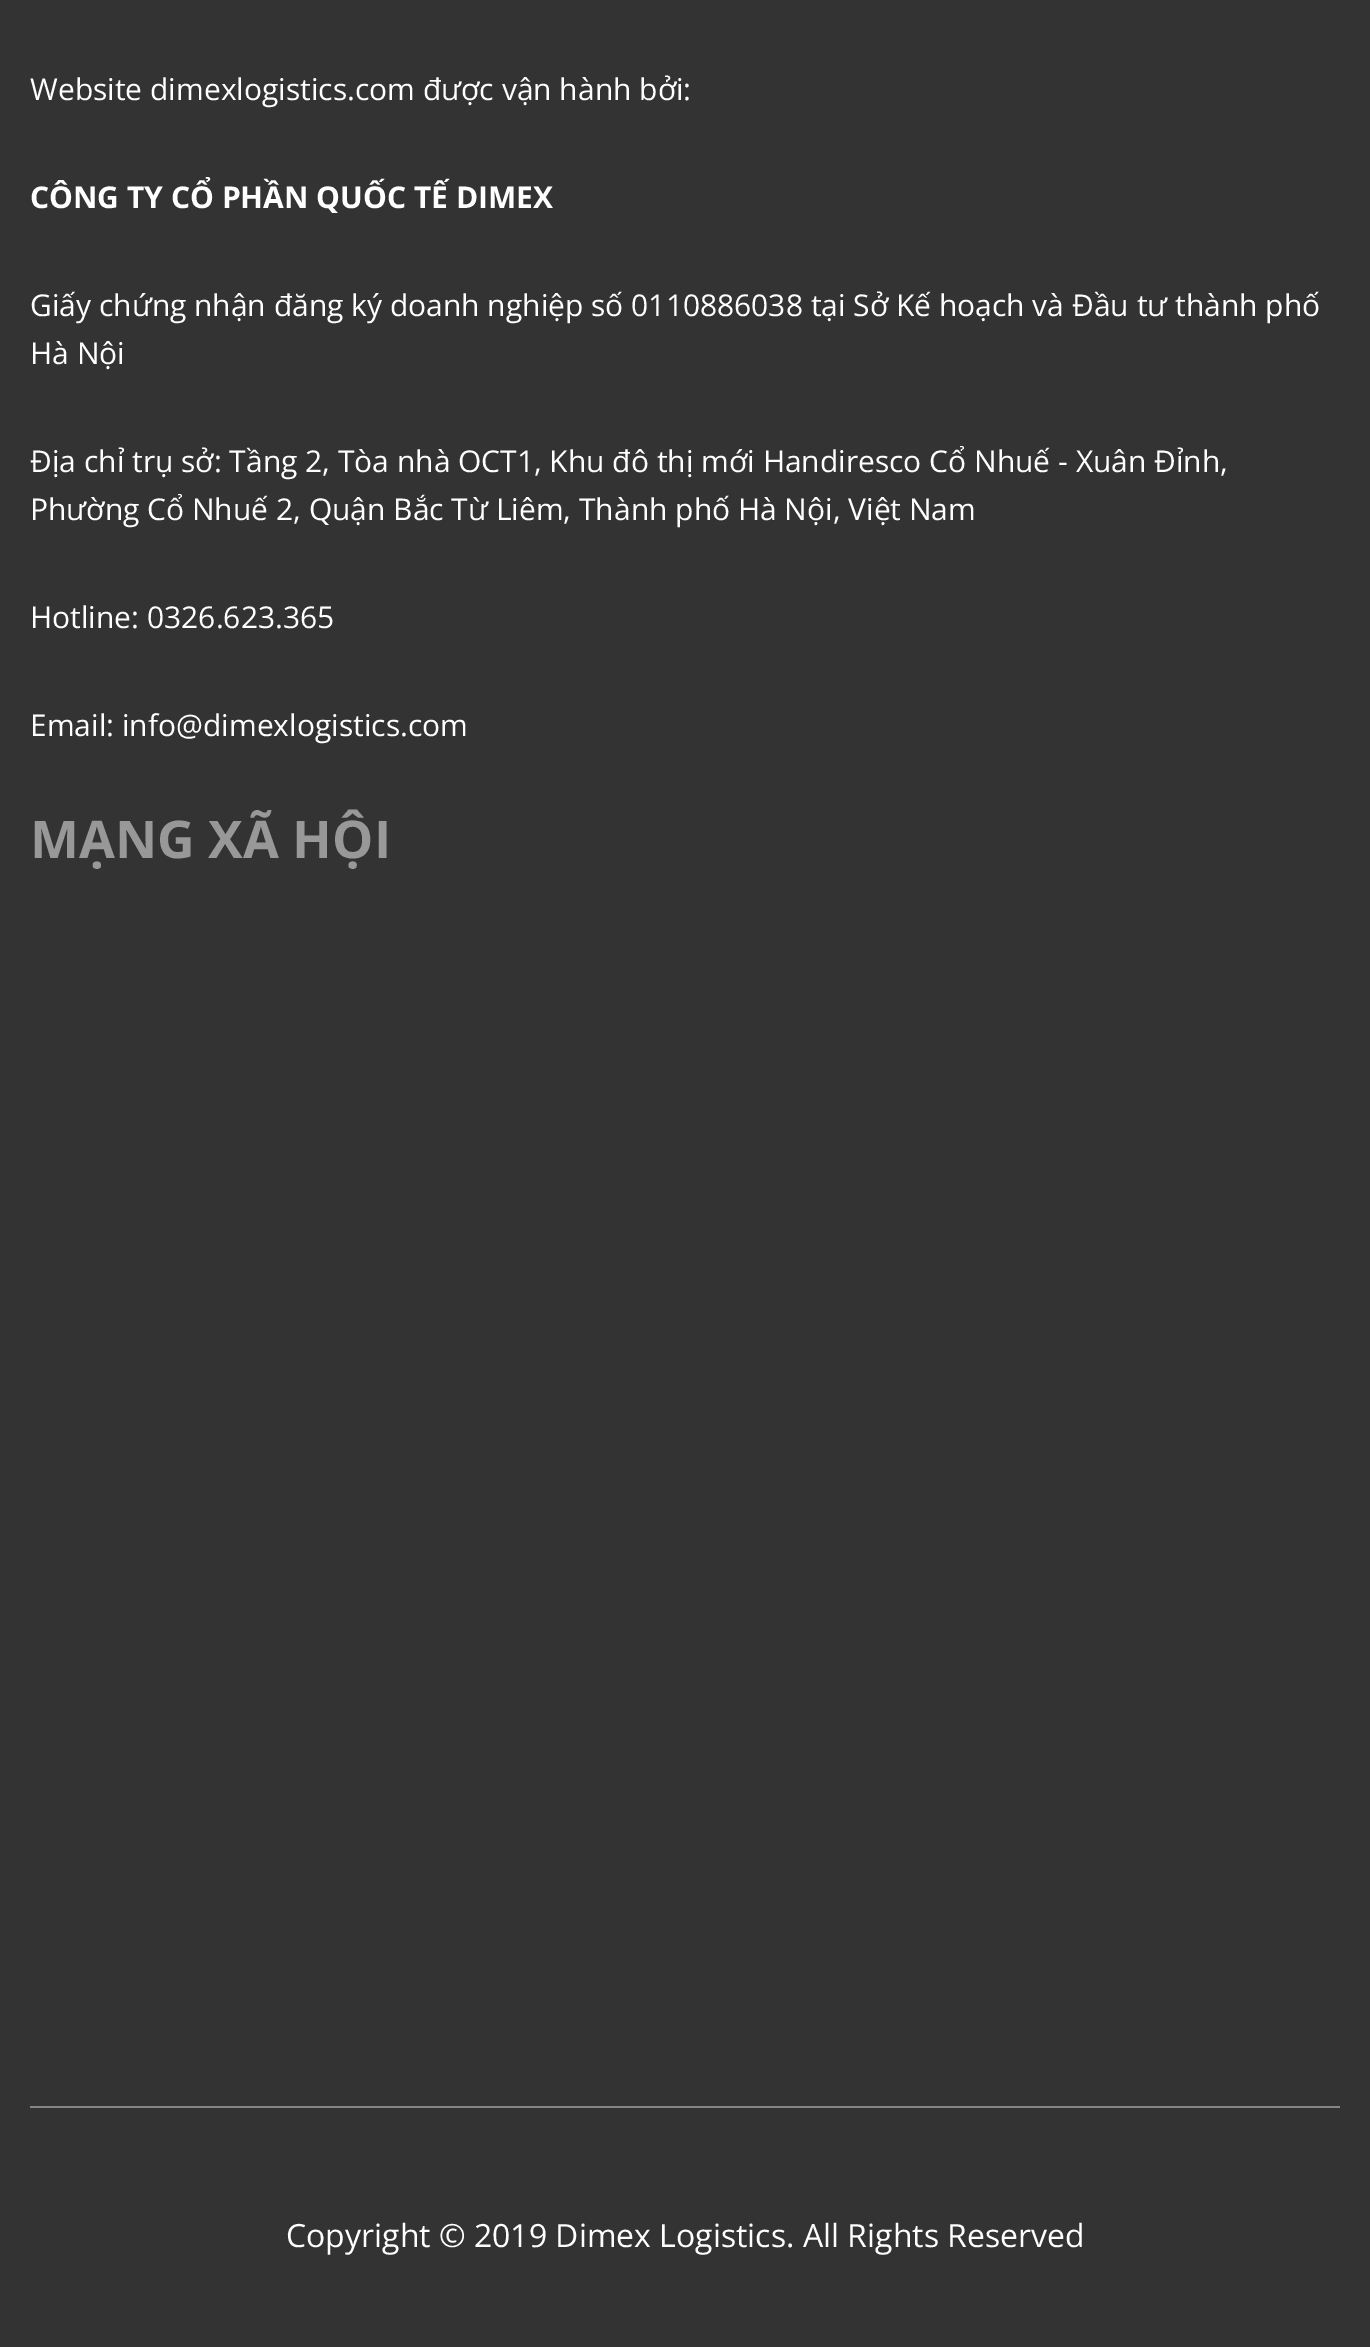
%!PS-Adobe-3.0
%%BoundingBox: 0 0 1370 2347
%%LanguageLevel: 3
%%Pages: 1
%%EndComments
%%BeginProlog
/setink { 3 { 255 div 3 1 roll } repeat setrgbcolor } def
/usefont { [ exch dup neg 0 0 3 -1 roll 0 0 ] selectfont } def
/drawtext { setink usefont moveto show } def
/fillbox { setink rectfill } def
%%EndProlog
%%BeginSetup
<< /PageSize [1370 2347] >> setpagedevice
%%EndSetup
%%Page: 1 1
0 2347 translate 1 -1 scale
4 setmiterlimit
0 0 1370 2347 51 51 51 fillbox
(Website dimexlogistics.com được vận hành bởi:) 30 100 /OpenSans-Regular 30 255 255 255 drawtext
(CÔNG TY CỔ PHẦN QUỐC TẾ DIMEX) 30 208 /OpenSans-Bold 30 255 255 255 drawtext
(Giấy chứng nhận đăng ký doanh nghiệp số 0110886038 tại Sở Kế hoạch và Đầu tư thành phố) 30 316 /OpenSans-Regular 30 255 255 255 drawtext
(Hà Nội) 30 364 /OpenSans-Regular 30 255 255 255 drawtext
(Địa chỉ trụ sở: Tầng 2, Tòa nhà OCT1, Khu đô thị mới Handiresco Cổ Nhuế - Xuân Đỉnh,) 30 472 /OpenSans-Regular 30 255 255 255 drawtext
(Phường Cổ Nhuế 2, Quận Bắc Từ Liêm, Thành phố Hà Nội, Việt Nam) 30 520 /OpenSans-Regular 30 255 255 255 drawtext
(Hotline: 0326.623.365) 30 628 /OpenSans-Regular 30 255 255 255 drawtext
(Email: info@dimexlogistics.com) 30 736 /OpenSans-Regular 30 255 255 255 drawtext
(MẠNG XÃ HỘI) 30 858 /OpenSans-Bold 52 152 152 152 drawtext
30 2106 1310 2 133 133 133 fillbox
(Copyright © 2019 Dimex Logistics. All Rights Reserved) 286 2247 /OpenSans-Regular 32 255 255 255 drawtext
showpage
%%EOF
